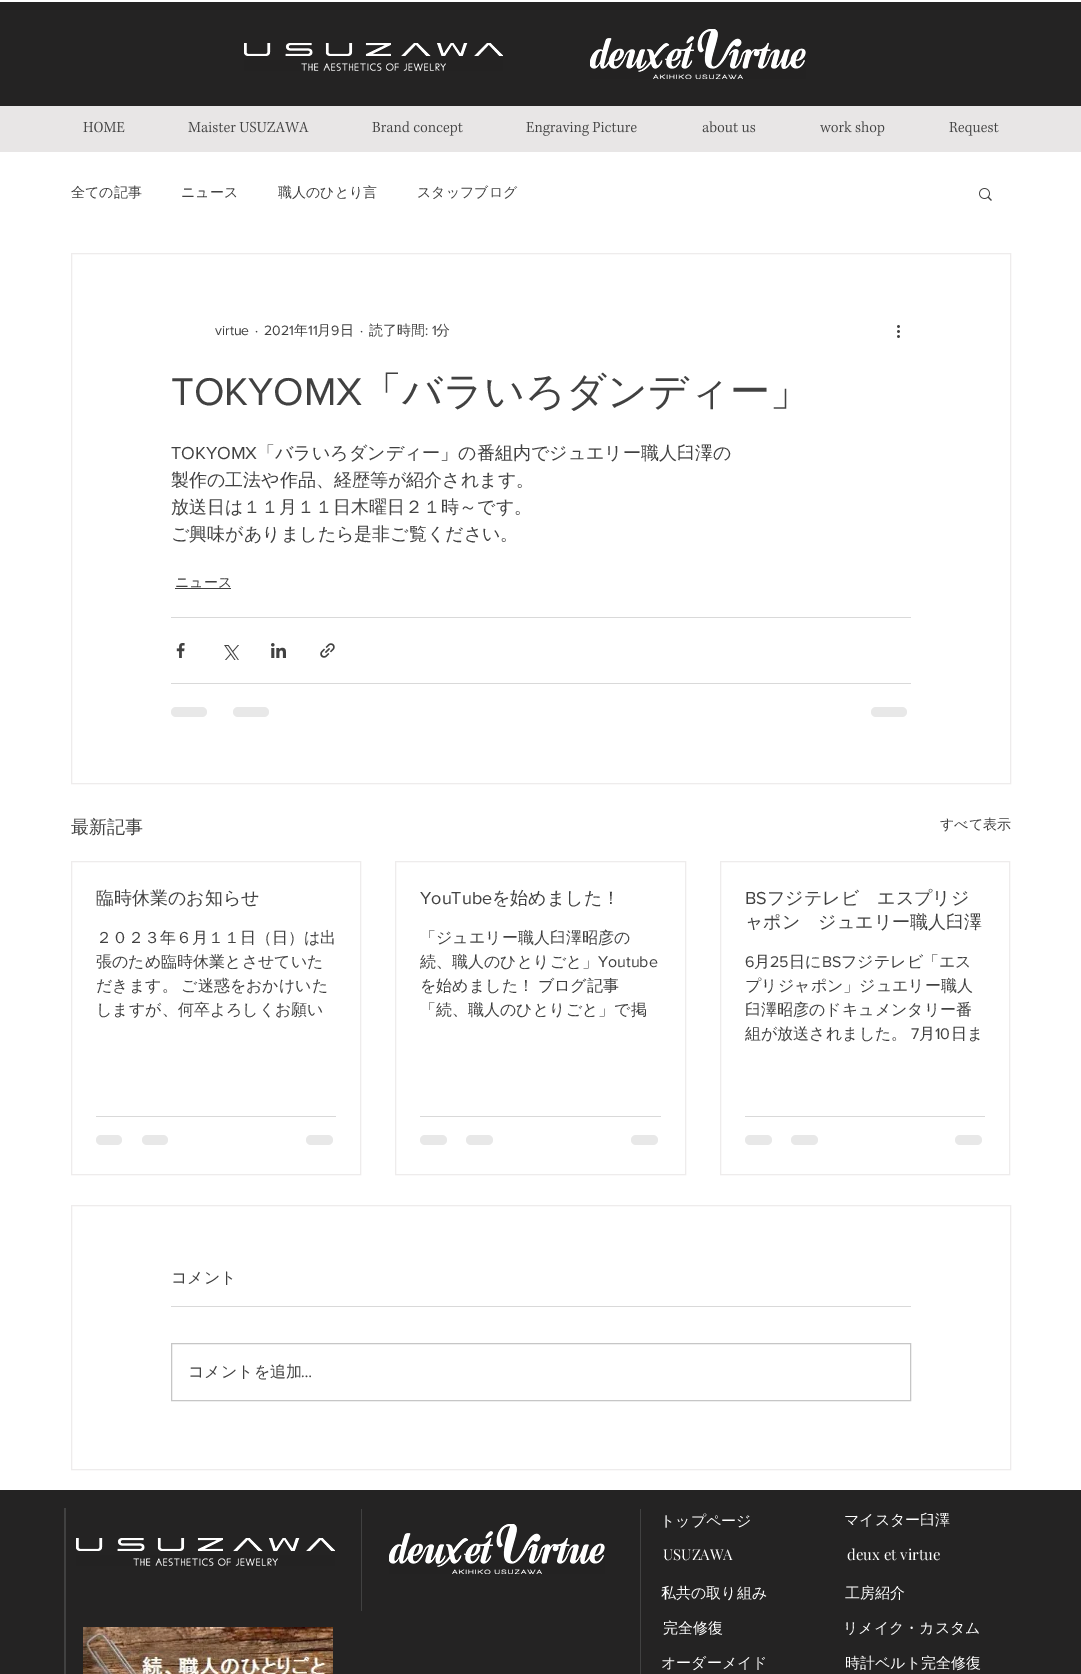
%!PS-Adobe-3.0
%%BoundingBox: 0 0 1081 1674
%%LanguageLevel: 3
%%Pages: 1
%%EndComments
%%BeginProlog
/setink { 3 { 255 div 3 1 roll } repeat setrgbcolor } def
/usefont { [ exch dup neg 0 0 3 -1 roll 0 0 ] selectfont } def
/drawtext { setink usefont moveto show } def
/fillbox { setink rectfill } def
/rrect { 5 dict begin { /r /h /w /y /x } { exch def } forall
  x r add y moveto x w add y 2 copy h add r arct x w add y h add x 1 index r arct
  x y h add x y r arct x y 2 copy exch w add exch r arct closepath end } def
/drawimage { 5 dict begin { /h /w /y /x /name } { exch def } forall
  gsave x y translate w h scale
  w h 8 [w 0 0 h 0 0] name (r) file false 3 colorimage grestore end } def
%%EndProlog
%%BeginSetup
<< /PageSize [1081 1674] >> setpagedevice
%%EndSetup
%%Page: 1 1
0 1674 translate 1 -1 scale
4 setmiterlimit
0 0 1081 1674 255 255 255 fillbox
0 2 1081 104 36 35 35 fillbox
(assets/img1.rgb) 244 43 259 28 drawimage
(assets/img2.rgb) 590 29 216 50 drawimage
0 106 1081 46 232 230 230 fillbox
(assets/img3.rgb) 83 121 42 12 drawimage
(assets/img4.rgb) 188 121 121 12 drawimage
(assets/img5.rgb) 372 121 91 15 drawimage
(assets/img6.rgb) 526 122 111 14 drawimage
(assets/img7.rgb) 702 121 54 12 drawimage
(assets/img8.rgb) 820 121 65 15 drawimage
(assets/img9.rgb) 949 122 50 14 drawimage
(全ての記事) 71 197 /WenQuanYiZenHei-Medium 14 65 65 65 drawtext
(ニュース) 181 197 /WenQuanYiZenHei-Medium 14 65 65 65 drawtext
(職人のひとり言) 278 197 /WenQuanYiZenHei-Medium 14 65 65 65 drawtext
(スタッフブログ) 417 197 /WenQuanYiZenHei-Medium 14 65 65 65 drawtext
(assets/img10.rgb) 979 188 13 13 drawimage
238 236 236 setink
71.5 253.5 939 530 rectstroke
(virtue) 215 335 /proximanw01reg-Regular 14 65 65 65 drawtext
(·) 255 335 /proximanw01reg-Regular 14 65 65 65 drawtext
(2021) 264 335 /proximanw01reg-Regular 14 65 65 65 drawtext
(年) 294 335 /WenQuanYiZenHei-Medium 14 65 65 65 drawtext
(11) 308 335 /proximanw01reg-Regular 14 65 65 65 drawtext
(月) 317 335 /WenQuanYiZenHei-Medium 14 65 65 65 drawtext
(9) 331 335 /proximanw01reg-Regular 14 65 65 65 drawtext
(日) 340 335 /WenQuanYiZenHei-Medium 14 65 65 65 drawtext
(·) 360 335 /proximanw01reg-Regular 14 65 65 65 drawtext
(読了時間) 369 335 /WenQuanYiZenHei-Medium 14 65 65 65 drawtext
(: 1) 425 335 /proximanw01reg-Regular 14 65 65 65 drawtext
(分) 436 335 /WenQuanYiZenHei-Medium 14 65 65 65 drawtext
(assets/img11.rgb) 897 325 3 13 drawimage
(TOKYOMX) 171 405 /proximanw01reg-Regular 40 65 65 65 drawtext
(「バラいろダンディー」) 362 405 /WenQuanYiZenHei-Medium 40 65 65 65 drawtext
(TOKYOMX) 171 459 /proximanw01reg-Regular 18 65 65 65 drawtext
(「バラいろダンディー」の番組内でジュエリー職人臼澤の) 257 459 /WenQuanYiZenHei-Medium 18 65 65 65 drawtext
(製作の工法や作品、経歴等が紹介されます。) 171 486 /WenQuanYiZenHei-Medium 18 65 65 65 drawtext
(放送日は１１月１１日木曜日２１時～です。) 171 513 /WenQuanYiZenHei-Medium 18 65 65 65 drawtext
(ご興味がありましたら是非ご覧ください。) 171 540 /WenQuanYiZenHei-Medium 18 65 65 65 drawtext
(ニュース) 175 587 /WenQuanYiZenHei-Medium 14 65 65 65 drawtext
175 588 56 1 65 65 65 fillbox
171 617 740 1 217 217 217 fillbox
(assets/img12.rgb) 176 643 9 15 drawimage
(assets/img13.rgb) 224 645 15 15 drawimage
(assets/img14.rgb) 271 643 15 15 drawimage
(assets/img15.rgb) 320 643 15 15 drawimage
171 683 740 1 217 217 217 fillbox
232 232 232 setink
171 707 36 10 5 rrect fill
233 707 36 10 5 rrect fill
871 707 36 10 5 rrect fill
(最新記事) 71 833 /WenQuanYiZenHei-Medium 18 65 65 65 drawtext
(すべて表示) 940 829 /WenQuanYiZenHei-Medium 14 65 65 65 drawtext
238 236 236 setink
71.5 861.5 289 313 rectstroke
(臨時休業のお知らせ) 96 904 /WenQuanYiZenHei-Medium 18 65 65 65 drawtext
(２０２３年６月１１日（日）は出) 96 943 /WenQuanYiZenHei-Medium 16 65 65 65 drawtext
(張のため臨時休業とさせていた) 96 967 /WenQuanYiZenHei-Medium 16 65 65 65 drawtext
96 991 moveto -1 0 32 (だきます。 ご迷惑をおかけいた) widthshow
(しますが、何卒よろしくお願い) 96 1015 /WenQuanYiZenHei-Medium 16 65 65 65 drawtext
96 1116 240 1 217 217 217 fillbox
232 232 232 setink
96 1135 26 10 5 rrect fill
142 1135 26 10 5 rrect fill
306 1135 27 10 5 rrect fill
238 236 236 setink
395.5 861.5 290 313 rectstroke
(YouTube) 420 904 /proximanw01reg-Regular 18 65 65 65 drawtext
(を始めました！) 492 904 /WenQuanYiZenHei-Medium 18 65 65 65 drawtext
(「ジュエリー職人臼澤昭彦の) 420 943 /WenQuanYiZenHei-Medium 16 65 65 65 drawtext
(続、職人のひとりごと」) 420 967 /WenQuanYiZenHei-Medium 16 65 65 65 drawtext
(Youtube) 598 967 /proximanw01reg-Regular 16 65 65 65 drawtext
/WenQuanYiZenHei-Medium 16 usefont
420 991 moveto -1 0 32 (を始めました！ ブログ記事) widthshow
(「続、職人のひとりごと」で掲) 420 1015 /WenQuanYiZenHei-Medium 16 65 65 65 drawtext
420 1116 241 1 217 217 217 fillbox
232 232 232 setink
420 1135 27 10 5 rrect fill
466 1135 27 10 5 rrect fill
631 1135 27 10 5 rrect fill
238 236 236 setink
720.5 861.5 289 313 rectstroke
(BS) 745 904 /proximanw01reg-Regular 18 65 65 65 drawtext
(フジテレビ　エスプリジ) 767 904 /WenQuanYiZenHei-Medium 18 65 65 65 drawtext
(ャポン　ジュエリー職人臼澤) 745 928 /WenQuanYiZenHei-Medium 18 65 65 65 drawtext
(6) 745 967 /proximanw01reg-Regular 16 65 65 65 drawtext
(月) 754 967 /WenQuanYiZenHei-Medium 16 65 65 65 drawtext
(25) 770 967 /proximanw01reg-Regular 16 65 65 65 drawtext
(日に) 789 967 /WenQuanYiZenHei-Medium 16 65 65 65 drawtext
(BS) 822 967 /proximanw01reg-Regular 16 65 65 65 drawtext
(フジテレビ「エス) 841 967 /WenQuanYiZenHei-Medium 16 65 65 65 drawtext
(プリジャポン」ジュエリー職人) 745 991 /WenQuanYiZenHei-Medium 16 65 65 65 drawtext
(臼澤昭彦のドキュメンタリー番) 745 1015 /WenQuanYiZenHei-Medium 16 65 65 65 drawtext
(組が放送されました。) 745 1039 /WenQuanYiZenHei-Medium 16 65 65 65 drawtext
(7) 911 1039 /proximanw01reg-Regular 16 65 65 65 drawtext
(月) 919 1039 /WenQuanYiZenHei-Medium 16 65 65 65 drawtext
(10) 935 1039 /proximanw01reg-Regular 16 65 65 65 drawtext
(日ま) 951 1039 /WenQuanYiZenHei-Medium 16 65 65 65 drawtext
745 1116 240 1 217 217 217 fillbox
232 232 232 setink
745 1135 27 10 5 rrect fill
791 1135 27 10 5 rrect fill
955 1135 27 10 5 rrect fill
238 236 236 setink
71.5 1205.5 939 264 rectstroke
(コメント) 171 1283 /WenQuanYiZenHei-Medium 16 65 65 65 drawtext
171 1306 740 1 217 217 217 fillbox
198 198 198 setink
171.5 1343.5 739 57 rectstroke
(コメントを追加) 188 1377 /WenQuanYiZenHei-Medium 16 65 65 65 drawtext
(…) 301 1377 /proximanw01reg-Regular 16 65 65 65 drawtext
0 1490 1081 184 36 35 35 fillbox
64 1508 2 166 65 65 65 fillbox
361 1509 1 102 65 65 65 fillbox
640 1509 1 165 65 65 65 fillbox
(トップページ) 660 1526 /WenQuanYiZenHei-Medium 15 255 255 255 drawtext
(マイスター臼澤) 844 1525 /WenQuanYiZenHei-Medium 15 255 255 255 drawtext
(assets/img1.rgb) 76 1538 259 28 drawimage
(assets/img2.rgb) 389 1524 216 50 drawimage
(USUZAWA) 663 1560 /PlayfairDisplay-Regular 15 255 255 255 drawtext
(deux et virtue) 847 1560 /PlayfairDisplay-Regular 15 255 255 255 drawtext
(私共の取り組み) 661 1598 /WenQuanYiZenHei-Medium 15 255 255 255 drawtext
(工房紹介) 845 1598 /WenQuanYiZenHei-Medium 15 255 255 255 drawtext
(assets/img16.rgb) 83 1627 250 47 drawimage
(完全修復) 663 1633 /WenQuanYiZenHei-Medium 15 255 255 255 drawtext
(リメイク・カスタム) 843 1633 /WenQuanYiZenHei-Medium 15 255 255 255 drawtext
(オーダーメイド) 661 1668 /WenQuanYiZenHei-Medium 15 255 255 255 drawtext
(時計ベルト完全修復) 845 1668 /WenQuanYiZenHei-Medium 15 255 255 255 drawtext
showpage
%%EOF
